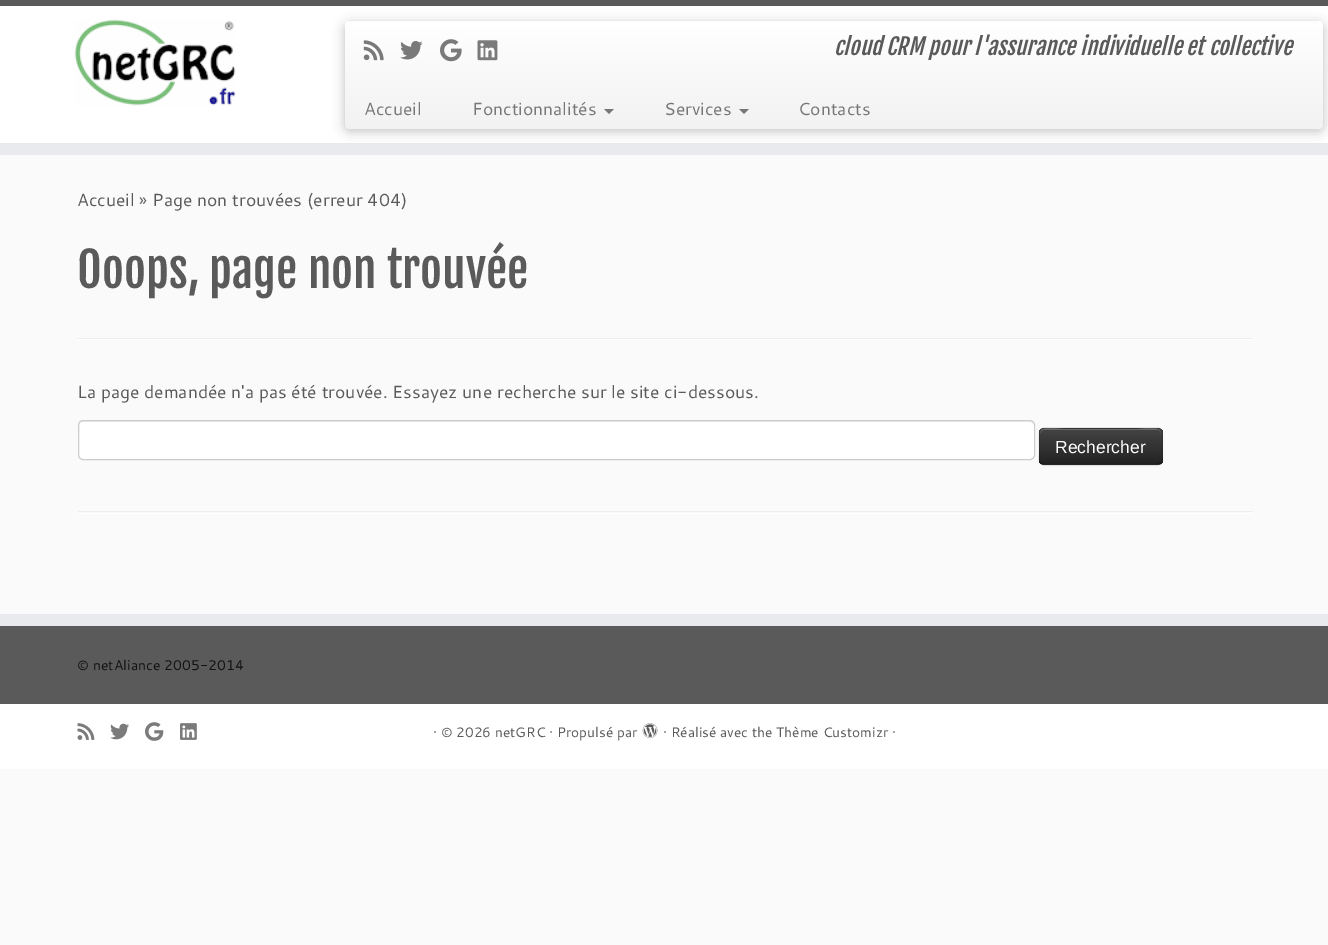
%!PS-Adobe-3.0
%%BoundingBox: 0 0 1328 945
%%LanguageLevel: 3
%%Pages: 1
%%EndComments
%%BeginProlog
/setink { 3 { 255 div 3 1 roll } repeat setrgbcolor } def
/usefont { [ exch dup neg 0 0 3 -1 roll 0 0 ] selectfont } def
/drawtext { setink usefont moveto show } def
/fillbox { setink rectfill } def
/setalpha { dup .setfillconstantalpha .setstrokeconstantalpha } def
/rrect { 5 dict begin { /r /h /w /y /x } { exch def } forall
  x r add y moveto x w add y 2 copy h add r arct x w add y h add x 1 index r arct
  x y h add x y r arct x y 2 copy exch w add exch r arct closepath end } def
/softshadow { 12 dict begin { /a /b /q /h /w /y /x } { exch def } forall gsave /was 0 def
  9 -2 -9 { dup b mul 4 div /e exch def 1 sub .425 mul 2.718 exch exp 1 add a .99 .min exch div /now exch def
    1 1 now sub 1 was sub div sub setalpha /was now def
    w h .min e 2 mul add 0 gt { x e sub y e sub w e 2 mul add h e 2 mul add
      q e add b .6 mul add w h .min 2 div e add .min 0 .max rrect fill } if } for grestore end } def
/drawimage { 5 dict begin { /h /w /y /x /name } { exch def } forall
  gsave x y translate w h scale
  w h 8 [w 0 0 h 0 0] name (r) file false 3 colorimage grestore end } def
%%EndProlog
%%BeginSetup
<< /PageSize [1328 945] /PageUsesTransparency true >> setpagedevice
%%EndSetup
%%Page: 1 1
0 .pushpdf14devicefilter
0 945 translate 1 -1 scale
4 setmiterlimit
0 0 1328 945 250 250 250 fillbox
0 6 1328 137 255 255 255 fillbox
0 0 1328 6 90 90 90 fillbox
0 143 1328 12 233 234 238 fillbox
(assets/img1.rgb) 74 19 162 87 drawimage
0 0 0 setink
345 24 978 107 5 6 0.25 softshadow
gsave 345 21 978 108 5 rrect clip newpath
<< /ShadingType 2 /ColorSpace /DeviceRGB /Coords [834 21 834 129] /Extend [true true] /Function << /FunctionType 2 /Domain [0 1] /C0 [1 1 1] /C1 [0.949 0.949 0.949] /N 1 >> >> shfill grestore
(assets/img2.rgb) 363 40 21 21 drawimage
(assets/img3.rgb) 400 41 23 19 drawimage
(assets/img4.rgb) 440 39 22 23 drawimage
(assets/img5.rgb) 477 40 21 21 drawimage
(cloud CRM pour l'assurance individuelle et collective) 834 55 /FjallaOne-Italic 22.5 90 90 90 drawtext
(Accueil) 364 115 /Cantarell-Regular 17.5 119 119 119 drawtext
(Fonctionnalités) 472 115 /Cantarell-Regular 17.5 119 119 119 drawtext
604 109 moveto 614 109 lineto 609 114 lineto closepath fill
(Services) 664 115 /Cantarell-Regular 17.5 119 119 119 drawtext
739 109 moveto 749 109 lineto 744 114 lineto closepath fill
(Contacts) 798 115 /Cantarell-Regular 17.5 119 119 119 drawtext
(Accueil » Page non trouvées \(erreur 404\)) 77 206 /Cantarell-Regular 17.5 90 90 90 drawtext
(Ooops, page non trouvée) 77 288 /FjallaOne-Regular 47.5 90 90 90 drawtext
78 338 1175 1 238 238 238 fillbox
78 339 1175 1 255 255 255 fillbox
(La page demandée n'a pas été trouvée. Essayez une recherche sur le site ci-dessous.) 77 398 /Cantarell-Regular 17.5 90 90 90 drawtext
255 255 255 setink
78 420 957 40 5 rrect fill
236 236 236 setink
82 422 moveto 1030 422 lineto 1032 422 1034 424 1034 426 curveto 1034 423 1033 421 1030 421 curveto 83 421 lineto 80 421 79 423 79 426 curveto 79 424 80 422 82 422 curveto closepath fill
204 204 204 setink
78.5 420.5 956 39 4.5 rrect stroke
0 0 0 setink
1039 429 124 37 5 1 0.05 softshadow
54 54 54 setink
1039 428 124 37 5 rrect fill
gsave
1039 428 124 37 5 rrect clip newpath
gsave 1039 429 moveto 1163 429 lineto 1163 464 lineto 1039 464 lineto closepath clip newpath
<< /ShadingType 2 /ColorSpace /DeviceRGB /Coords [1101 429 1101 464] /Extend [true true] /Function << /FunctionType 2 /Domain [0 1] /C0 [0.267 0.267 0.267] /C1 [0.133 0.133 0.133] /N 1 >> >> shfill grestore
grestore
0.2 setalpha
255 255 255 setink
1044 430 moveto 1158 430 lineto 1160 430 1161 432 1161 434 curveto 1161 424 1141 429 1138 429 curveto 1063 429 lineto 1060 429 1040 424 1040 434 curveto 1040 432 1042 430 1044 430 curveto closepath fill
0.25 setalpha
0 0 0 setink
1.2 setlinewidth
1160.5 463 moveto 1157.5 464.5 lineto 1043.5 464.5 lineto 1040.5 463 lineto stroke
0.1 setalpha
1040.5 463 moveto 1038 460.5 1039.5 454 1039.5 451 curveto 1039.5 424 1035 428 1062.5 428 curveto 1138.5 428 lineto 1166.5 428 1162 424 1162 451 curveto 1162 454 1163.5 460.5 1160.5 463 curveto stroke
1 setalpha
(Rechercher) 1055 453 /LiberationSans-Regular 17.5 255 255 255 drawtext
78 511 1175 1 238 238 238 fillbox
78 513 1175 1 255 255 255 fillbox
0 626 1328 78 90 90 90 fillbox
0 614 1328 12 233 234 238 fillbox
(© netAliance 2005-2014) 77 670 /Cantarell-Regular 14 17 17 17 drawtext
0 704 1328 65 255 255 255 fillbox
(assets/img6.rgb) 77 723 18 17 drawimage
(assets/img7.rgb) 110 723 19 17 drawimage
(assets/img8.rgb) 145 722 19 19 drawimage
(assets/img9.rgb) 180 723 17 17 drawimage
(· © 2026 netGRC · Propulsé par) 433 737 /Cantarell-Regular 13.75 90 90 90 drawtext
(assets/img10.rgb) 642 723 16 15 drawimage
(· Réalisé avec the Thème Customizr ·) 663 737 /Cantarell-Regular 13.75 90 90 90 drawtext
.poppdf14devicefilter showpage
%%EOF
